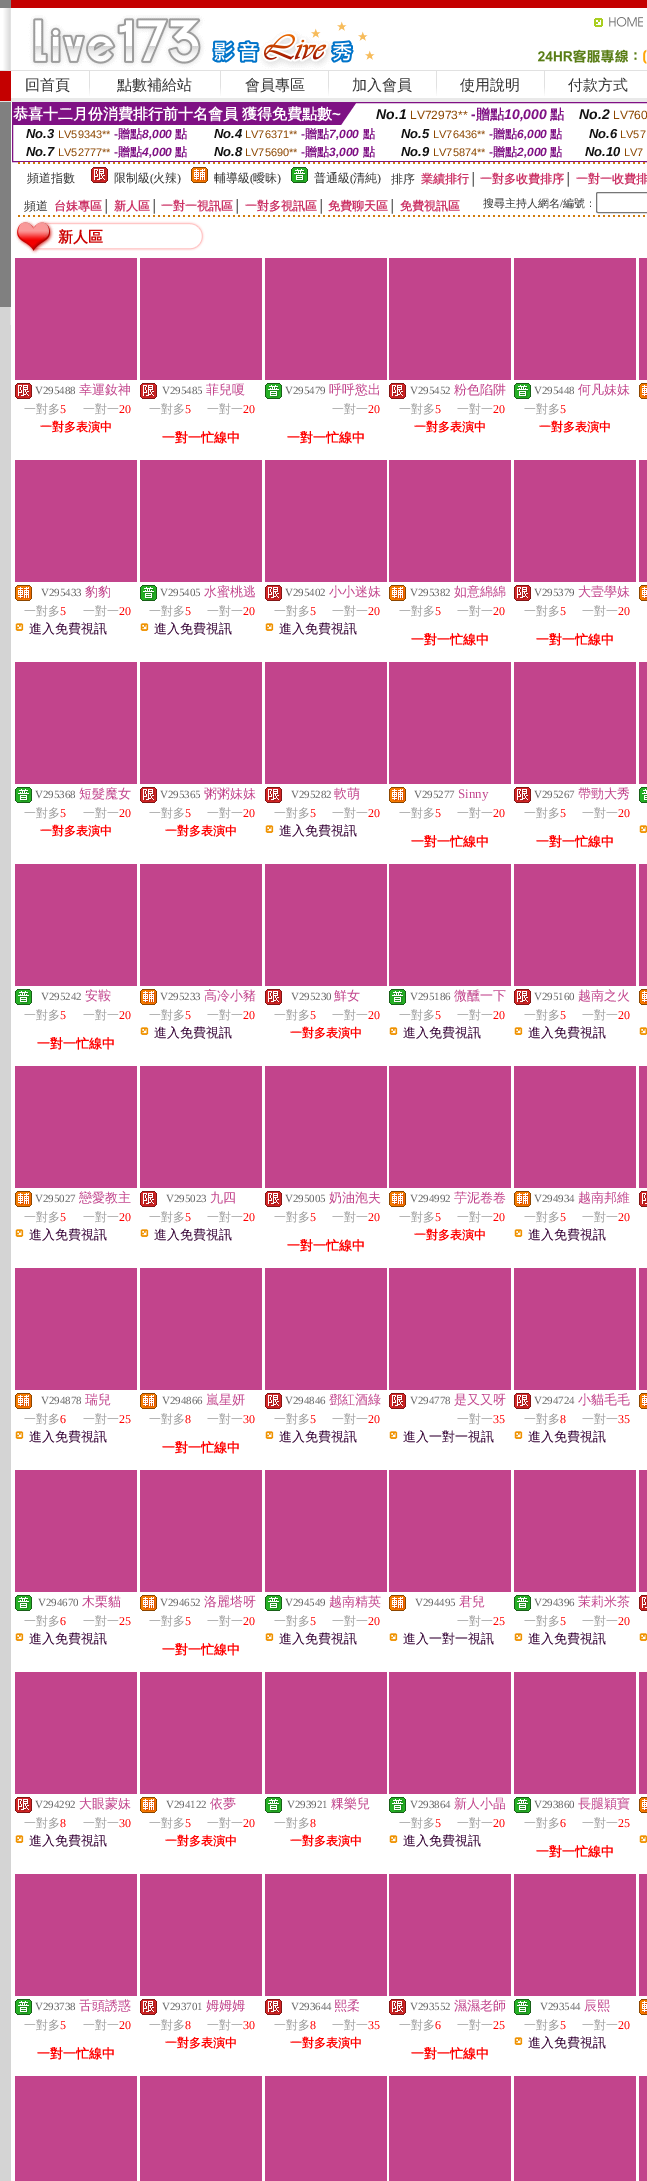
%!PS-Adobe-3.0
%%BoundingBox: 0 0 647 2181
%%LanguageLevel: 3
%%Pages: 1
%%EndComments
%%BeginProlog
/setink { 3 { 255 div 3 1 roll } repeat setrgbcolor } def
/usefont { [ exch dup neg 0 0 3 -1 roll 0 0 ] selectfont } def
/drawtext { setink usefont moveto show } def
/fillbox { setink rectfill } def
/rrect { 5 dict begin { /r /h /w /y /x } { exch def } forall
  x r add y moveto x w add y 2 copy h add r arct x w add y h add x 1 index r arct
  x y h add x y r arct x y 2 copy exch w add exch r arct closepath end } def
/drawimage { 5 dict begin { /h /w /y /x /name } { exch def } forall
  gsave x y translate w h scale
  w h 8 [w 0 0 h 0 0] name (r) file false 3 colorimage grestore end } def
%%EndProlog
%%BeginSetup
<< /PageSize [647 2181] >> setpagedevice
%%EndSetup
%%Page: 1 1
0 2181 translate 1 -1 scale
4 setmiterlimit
0 0 647 2181 212 212 212 fillbox
(assets/img1.rgb) 0 0 11 325 drawimage
11 8 636 2173 255 255 255 fillbox
11 0 636 8 196 0 0 fillbox
(assets/img2.rgb) 28 15 347 55 drawimage
(assets/img3.rgb) 594 17 49 10 drawimage
(assets/img4.rgb) 537 49 110 15 drawimage
11 70 636 1 225 225 225 fillbox
(回首頁) 25 90 /WenQuanYiZenHei-Medium 15 51 51 51 drawtext
(assets/img5.rgb) 89 71 1 25 drawimage
(點數補給站) 117 90 /WenQuanYiZenHei-Medium 15 51 51 51 drawtext
(assets/img5.rgb) 220 71 1 25 drawimage
(會員專區) 245 90 /WenQuanYiZenHei-Medium 15 51 51 51 drawtext
(assets/img5.rgb) 328 71 1 25 drawimage
(加入會員) 352 90 /WenQuanYiZenHei-Medium 15 51 51 51 drawtext
(assets/img5.rgb) 436 71 1 25 drawimage
(使用說明) 460 90 /WenQuanYiZenHei-Medium 15 51 51 51 drawtext
(assets/img5.rgb) 544 71 1 25 drawimage
(付款方式) 568 90 /WenQuanYiZenHei-Medium 15 51 51 51 drawtext
11 98 636 4 233 233 233 fillbox
127 17 132 setink
12.5 102.5 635 59 rectstroke
13 103 328 22 127 17 132 fillbox
(恭喜十二月份消費排行前十名會員 獲得免費點數) 13 119 /WenQuanYiZenHei-Bold 15 255 255 255 drawtext
(~) 332 119 /LiberationSans-Bold 15 255 255 255 drawtext
126 17 132 setink
341 103 moveto 356 103 lineto 341 125 lineto closepath fill
(No.1) 376 119 /LiberationSans-BoldItalic 14 17 17 17 drawtext
(LV72973**) 410 119 /LiberationSans-Regular 12 140 70 0 drawtext
(-) 471 119 /LiberationSans-Bold 14 127 17 132 drawtext
(贈點) 476 119 /WenQuanYiZenHei-Bold 14 127 17 132 drawtext
(10,000) 504 119 /LiberationSans-BoldItalic 14 127 17 132 drawtext
(點) 550 119 /WenQuanYiZenHei-Bold 14 127 17 132 drawtext
(No.2) 579 119 /LiberationSans-BoldItalic 14 17 17 17 drawtext
(LV760) 613 119 /LiberationSans-Regular 12 140 70 0 drawtext
(No.3) 26 138 /LiberationSans-BoldItalic 13 17 17 17 drawtext
(LV59343**) 58 138 /LiberationSans-Regular 11 140 70 0 drawtext
(-) 114 138 /LiberationSans-Bold 12 127 17 132 drawtext
(贈點) 118 138 /WenQuanYiZenHei-Bold 12 127 17 132 drawtext
(8,000) 142 138 /LiberationSans-BoldItalic 12 127 17 132 drawtext
(點) 175 138 /WenQuanYiZenHei-Bold 12 127 17 132 drawtext
(No.4) 214 138 /LiberationSans-BoldItalic 13 17 17 17 drawtext
(LV76371**) 245 138 /LiberationSans-Regular 11 140 70 0 drawtext
(-) 301 138 /LiberationSans-Bold 12 127 17 132 drawtext
(贈點) 305 138 /WenQuanYiZenHei-Bold 12 127 17 132 drawtext
(7,000) 329 138 /LiberationSans-BoldItalic 12 127 17 132 drawtext
(點) 363 138 /WenQuanYiZenHei-Bold 12 127 17 132 drawtext
(No.5) 401 138 /LiberationSans-BoldItalic 13 17 17 17 drawtext
(LV76436**) 433 138 /LiberationSans-Regular 11 140 70 0 drawtext
(-) 489 138 /LiberationSans-Bold 12 127 17 132 drawtext
(贈點) 493 138 /WenQuanYiZenHei-Bold 12 127 17 132 drawtext
(6,000) 517 138 /LiberationSans-BoldItalic 12 127 17 132 drawtext
(點) 550 138 /WenQuanYiZenHei-Bold 12 127 17 132 drawtext
(No.6) 589 138 /LiberationSans-BoldItalic 13 17 17 17 drawtext
(LV57) 620 138 /LiberationSans-Regular 11 140 70 0 drawtext
(No.7) 26 156 /LiberationSans-BoldItalic 13 17 17 17 drawtext
(LV52777**) 58 156 /LiberationSans-Regular 11 140 70 0 drawtext
(-) 114 156 /LiberationSans-Bold 12 127 17 132 drawtext
(贈點) 118 156 /WenQuanYiZenHei-Bold 12 127 17 132 drawtext
(4,000) 142 156 /LiberationSans-BoldItalic 12 127 17 132 drawtext
(點) 175 156 /WenQuanYiZenHei-Bold 12 127 17 132 drawtext
(No.8) 214 156 /LiberationSans-BoldItalic 13 17 17 17 drawtext
(LV75690**) 245 156 /LiberationSans-Regular 11 140 70 0 drawtext
(-) 301 156 /LiberationSans-Bold 12 127 17 132 drawtext
(贈點) 305 156 /WenQuanYiZenHei-Bold 12 127 17 132 drawtext
(3,000) 329 156 /LiberationSans-BoldItalic 12 127 17 132 drawtext
(點) 363 156 /WenQuanYiZenHei-Bold 12 127 17 132 drawtext
(No.9) 401 156 /LiberationSans-BoldItalic 13 17 17 17 drawtext
(LV75874**) 433 156 /LiberationSans-Regular 11 140 70 0 drawtext
(-) 489 156 /LiberationSans-Bold 12 127 17 132 drawtext
(贈點) 493 156 /WenQuanYiZenHei-Bold 12 127 17 132 drawtext
(2,000) 517 156 /LiberationSans-BoldItalic 12 127 17 132 drawtext
(點) 550 156 /WenQuanYiZenHei-Bold 12 127 17 132 drawtext
(No.10) 585 156 /LiberationSans-BoldItalic 13 17 17 17 drawtext
(LV7) 624 156 /LiberationSans-Regular 11 140 70 0 drawtext
(assets/img6.rgb) 18 162 627 2 drawimage
(頻道指數) 27 182 /WenQuanYiZenHei-Medium 12 51 51 51 drawtext
(assets/img7.rgb) 91 167 17 16 drawimage
(限制級) 114 182 /WenQuanYiZenHei-Medium 12 51 51 51 drawtext
(\() 150 182 /LiberationSerif-Regular 12 51 51 51 drawtext
(火辣) 153 182 /WenQuanYiZenHei-Medium 12 51 51 51 drawtext
(\)) 177 182 /LiberationSerif-Regular 12 51 51 51 drawtext
(assets/img8.rgb) 191 167 17 16 drawimage
(輔導級) 214 182 /WenQuanYiZenHei-Medium 12 51 51 51 drawtext
(\() 250 182 /LiberationSerif-Regular 12 51 51 51 drawtext
(曖昧) 253 182 /WenQuanYiZenHei-Medium 12 51 51 51 drawtext
(\)) 277 182 /LiberationSerif-Regular 12 51 51 51 drawtext
(assets/img9.rgb) 291 167 17 16 drawimage
(普通級) 314 182 /WenQuanYiZenHei-Medium 12 51 51 51 drawtext
(\() 350 182 /LiberationSerif-Regular 12 51 51 51 drawtext
(清純) 353 182 /WenQuanYiZenHei-Medium 12 51 51 51 drawtext
(\)) 377 182 /LiberationSerif-Regular 12 51 51 51 drawtext
(排序) 391 183 /WenQuanYiZenHei-Medium 12 51 51 51 drawtext
(業績排行) 421 183 /WenQuanYiZenHei-Bold 12 204 51 102 drawtext
(│) 469 183 /LiberationSerif-Regular 12 51 51 51 drawtext
(一對多收費排序) 480 183 /WenQuanYiZenHei-Bold 12 204 51 102 drawtext
(│) 564 183 /LiberationSerif-Regular 12 51 51 51 drawtext
(一對一收費排) 576 183 /WenQuanYiZenHei-Bold 12 204 51 102 drawtext
(頻道) 24 210 /WenQuanYiZenHei-Medium 12 51 51 51 drawtext
(台妹專區) 54 210 /WenQuanYiZenHei-Bold 12 204 51 102 drawtext
(│) 102 210 /LiberationSerif-Regular 12 51 51 51 drawtext
(新人區) 114 210 /WenQuanYiZenHei-Bold 12 204 51 102 drawtext
(│) 150 210 /LiberationSerif-Regular 12 51 51 51 drawtext
(一對一視訊區) 161 210 /WenQuanYiZenHei-Bold 12 204 51 102 drawtext
(│) 233 210 /LiberationSerif-Regular 12 51 51 51 drawtext
(一對多視訊區) 245 210 /WenQuanYiZenHei-Bold 12 204 51 102 drawtext
(│) 317 210 /LiberationSerif-Regular 12 51 51 51 drawtext
(免費聊天區) 328 210 /WenQuanYiZenHei-Bold 12 204 51 102 drawtext
(│) 388 210 /LiberationSerif-Regular 12 51 51 51 drawtext
(免費視訊區) 400 210 /WenQuanYiZenHei-Bold 12 204 51 102 drawtext
(搜尋主持人網名) 483 207 /WenQuanYiZenHei-Medium 11 51 51 51 drawtext
(/) 560 207 /LiberationSerif-Regular 11 51 51 51 drawtext
(編號：) 563 207 /WenQuanYiZenHei-Medium 11 51 51 51 drawtext
118 118 118 setink
596.5 192.5 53 20 1.5 rrect stroke
(assets/img6.rgb) 18 215 627 2 drawimage
(assets/img10.rgb) 15 220 43 34 drawimage
(assets/img11.rgb) 58 221 130 30 drawimage
(新人區) 58 242 /WenQuanYiZenHei-Bold 15 204 0 0 drawtext
(assets/img12.rgb) 188 221 17 30 drawimage
639 258 8 122 194 68 140 fillbox
(assets/img13.rgb) 639 383 8 16 drawimage
15 258 122 122 194 68 140 fillbox
(assets/img7.rgb) 15 383 17 16 drawimage
(V295488) 35 394 /LiberationSerif-Regular 11 102 102 102 drawtext
(幸運釹神) 79 394 /WenQuanYiZenHei-Medium 13 194 68 140 drawtext
(一對多) 24 413 /WenQuanYiZenHei-Medium 12 153 153 153 drawtext
(5) 60 413 /LiberationSerif-Regular 12 255 0 0 drawtext
(一對一) 83 413 /WenQuanYiZenHei-Medium 12 153 153 153 drawtext
(20) 119 413 /LiberationSerif-Regular 12 255 0 0 drawtext
(一對多表演中) 40 431 /WenQuanYiZenHei-Bold 12 255 0 0 drawtext
140 258 122 122 194 68 140 fillbox
(assets/img7.rgb) 140 383 17 16 drawimage
(V295485) 162 394 /LiberationSerif-Regular 11 102 102 102 drawtext
(菲兒嗄) 206 394 /WenQuanYiZenHei-Medium 13 194 68 140 drawtext
(一對多) 149 413 /WenQuanYiZenHei-Medium 12 153 153 153 drawtext
(5) 185 413 /LiberationSerif-Regular 12 255 0 0 drawtext
(一對一) 207 413 /WenQuanYiZenHei-Medium 12 153 153 153 drawtext
(20) 243 413 /LiberationSerif-Regular 12 255 0 0 drawtext
(一對一忙線中) 162 442 /WenQuanYiZenHei-Bold 13 255 0 0 drawtext
265 258 122 122 194 68 140 fillbox
(assets/img9.rgb) 265 383 17 16 drawimage
(V295479) 285 394 /LiberationSerif-Regular 11 102 102 102 drawtext
(呼呼慾出) 329 394 /WenQuanYiZenHei-Medium 13 194 68 140 drawtext
(一對一) 332 413 /WenQuanYiZenHei-Medium 12 153 153 153 drawtext
(20) 368 413 /LiberationSerif-Regular 12 255 0 0 drawtext
(一對一忙線中) 287 442 /WenQuanYiZenHei-Bold 13 255 0 0 drawtext
389 258 122 122 194 68 140 fillbox
(assets/img7.rgb) 389 383 17 16 drawimage
(V295452) 410 394 /LiberationSerif-Regular 11 102 102 102 drawtext
(粉色陷阱) 454 394 /WenQuanYiZenHei-Medium 13 194 68 140 drawtext
(一對多) 399 413 /WenQuanYiZenHei-Medium 12 153 153 153 drawtext
(5) 435 413 /LiberationSerif-Regular 12 255 0 0 drawtext
(一對一) 457 413 /WenQuanYiZenHei-Medium 12 153 153 153 drawtext
(20) 493 413 /LiberationSerif-Regular 12 255 0 0 drawtext
(一對多表演中) 414 431 /WenQuanYiZenHei-Bold 12 255 0 0 drawtext
514 258 122 122 194 68 140 fillbox
(assets/img9.rgb) 514 383 17 16 drawimage
(V295448) 534 394 /LiberationSerif-Regular 11 102 102 102 drawtext
(何凡妹妹) 578 394 /WenQuanYiZenHei-Medium 13 194 68 140 drawtext
(一對多) 524 413 /WenQuanYiZenHei-Medium 12 153 153 153 drawtext
(5) 560 413 /LiberationSerif-Regular 12 255 0 0 drawtext
(一對多表演中) 539 431 /WenQuanYiZenHei-Bold 12 255 0 0 drawtext
639 460 8 122 194 68 140 fillbox
(assets/img13.rgb) 639 585 8 16 drawimage
15 460 122 122 194 68 140 fillbox
(assets/img8.rgb) 15 585 17 16 drawimage
(V295433) 41 596 /LiberationSerif-Regular 11 102 102 102 drawtext
(豹豹) 85 596 /WenQuanYiZenHei-Medium 13 194 68 140 drawtext
(一對多) 24 615 /WenQuanYiZenHei-Medium 12 153 153 153 drawtext
(5) 60 615 /LiberationSerif-Regular 12 255 0 0 drawtext
(一對一) 83 615 /WenQuanYiZenHei-Medium 12 153 153 153 drawtext
(20) 119 615 /LiberationSerif-Regular 12 255 0 0 drawtext
(assets/img14.rgb) 15 623 9 8 drawimage
(進入免費視訊) 29 633 /WenQuanYiZenHei-Medium 13 51 0 51 drawtext
140 460 122 122 194 68 140 fillbox
(assets/img9.rgb) 140 585 17 16 drawimage
(V295405) 160 596 /LiberationSerif-Regular 11 102 102 102 drawtext
(水蜜桃逃) 204 596 /WenQuanYiZenHei-Medium 13 194 68 140 drawtext
(一對多) 149 615 /WenQuanYiZenHei-Medium 12 153 153 153 drawtext
(5) 185 615 /LiberationSerif-Regular 12 255 0 0 drawtext
(一對一) 207 615 /WenQuanYiZenHei-Medium 12 153 153 153 drawtext
(20) 243 615 /LiberationSerif-Regular 12 255 0 0 drawtext
(assets/img14.rgb) 140 623 9 8 drawimage
(進入免費視訊) 154 633 /WenQuanYiZenHei-Medium 13 51 0 51 drawtext
265 460 122 122 194 68 140 fillbox
(assets/img7.rgb) 265 585 17 16 drawimage
(V295402) 285 596 /LiberationSerif-Regular 11 102 102 102 drawtext
(小小迷妹) 329 596 /WenQuanYiZenHei-Medium 13 194 68 140 drawtext
(一對多) 274 615 /WenQuanYiZenHei-Medium 12 153 153 153 drawtext
(5) 310 615 /LiberationSerif-Regular 12 255 0 0 drawtext
(一對一) 332 615 /WenQuanYiZenHei-Medium 12 153 153 153 drawtext
(20) 368 615 /LiberationSerif-Regular 12 255 0 0 drawtext
(assets/img14.rgb) 265 623 9 8 drawimage
(進入免費視訊) 279 633 /WenQuanYiZenHei-Medium 13 51 0 51 drawtext
389 460 122 122 194 68 140 fillbox
(assets/img8.rgb) 389 585 17 16 drawimage
(V295382) 410 596 /LiberationSerif-Regular 11 102 102 102 drawtext
(如意綿綿) 454 596 /WenQuanYiZenHei-Medium 13 194 68 140 drawtext
(一對多) 399 615 /WenQuanYiZenHei-Medium 12 153 153 153 drawtext
(5) 435 615 /LiberationSerif-Regular 12 255 0 0 drawtext
(一對一) 457 615 /WenQuanYiZenHei-Medium 12 153 153 153 drawtext
(20) 493 615 /LiberationSerif-Regular 12 255 0 0 drawtext
(一對一忙線中) 411 644 /WenQuanYiZenHei-Bold 13 255 0 0 drawtext
514 460 122 122 194 68 140 fillbox
(assets/img7.rgb) 514 585 17 16 drawimage
(V295379) 534 596 /LiberationSerif-Regular 11 102 102 102 drawtext
(大壹學妹) 578 596 /WenQuanYiZenHei-Medium 13 194 68 140 drawtext
(一對多) 524 615 /WenQuanYiZenHei-Medium 12 153 153 153 drawtext
(5) 560 615 /LiberationSerif-Regular 12 255 0 0 drawtext
(一對一) 582 615 /WenQuanYiZenHei-Medium 12 153 153 153 drawtext
(20) 618 615 /LiberationSerif-Regular 12 255 0 0 drawtext
(一對一忙線中) 536 644 /WenQuanYiZenHei-Bold 13 255 0 0 drawtext
15 662 122 122 194 68 140 fillbox
(assets/img9.rgb) 15 787 17 16 drawimage
(V295368) 35 798 /LiberationSerif-Regular 11 102 102 102 drawtext
(短髮魔女) 79 798 /WenQuanYiZenHei-Medium 13 194 68 140 drawtext
(一對多) 24 817 /WenQuanYiZenHei-Medium 12 153 153 153 drawtext
(5) 60 817 /LiberationSerif-Regular 12 255 0 0 drawtext
(一對一) 83 817 /WenQuanYiZenHei-Medium 12 153 153 153 drawtext
(20) 119 817 /LiberationSerif-Regular 12 255 0 0 drawtext
(一對多表演中) 40 835 /WenQuanYiZenHei-Bold 12 255 0 0 drawtext
140 662 122 122 194 68 140 fillbox
(assets/img7.rgb) 140 787 17 16 drawimage
(V295365) 160 798 /LiberationSerif-Regular 11 102 102 102 drawtext
(粥粥妹妹) 204 798 /WenQuanYiZenHei-Medium 13 194 68 140 drawtext
(一對多) 149 817 /WenQuanYiZenHei-Medium 12 153 153 153 drawtext
(5) 185 817 /LiberationSerif-Regular 12 255 0 0 drawtext
(一對一) 207 817 /WenQuanYiZenHei-Medium 12 153 153 153 drawtext
(20) 243 817 /LiberationSerif-Regular 12 255 0 0 drawtext
(一對多表演中) 165 835 /WenQuanYiZenHei-Bold 12 255 0 0 drawtext
265 662 122 122 194 68 140 fillbox
(assets/img7.rgb) 265 787 17 16 drawimage
(V295282) 291 798 /LiberationSerif-Regular 11 102 102 102 drawtext
(軟萌) 334 798 /WenQuanYiZenHei-Medium 13 194 68 140 drawtext
(一對多) 274 817 /WenQuanYiZenHei-Medium 12 153 153 153 drawtext
(5) 310 817 /LiberationSerif-Regular 12 255 0 0 drawtext
(一對一) 332 817 /WenQuanYiZenHei-Medium 12 153 153 153 drawtext
(20) 368 817 /LiberationSerif-Regular 12 255 0 0 drawtext
(assets/img14.rgb) 265 825 9 8 drawimage
(進入免費視訊) 279 835 /WenQuanYiZenHei-Medium 13 51 0 51 drawtext
389 662 122 122 194 68 140 fillbox
(assets/img8.rgb) 389 787 17 16 drawimage
(V295277) 414 798 /LiberationSerif-Regular 11 102 102 102 drawtext
(Sinny) 458 798 /LiberationSerif-Regular 13 194 68 140 drawtext
(一對多) 399 817 /WenQuanYiZenHei-Medium 12 153 153 153 drawtext
(5) 435 817 /LiberationSerif-Regular 12 255 0 0 drawtext
(一對一) 457 817 /WenQuanYiZenHei-Medium 12 153 153 153 drawtext
(20) 493 817 /LiberationSerif-Regular 12 255 0 0 drawtext
(一對一忙線中) 411 846 /WenQuanYiZenHei-Bold 13 255 0 0 drawtext
514 662 122 122 194 68 140 fillbox
(assets/img7.rgb) 514 787 17 16 drawimage
(V295267) 534 798 /LiberationSerif-Regular 11 102 102 102 drawtext
(帶勁大秀) 578 798 /WenQuanYiZenHei-Medium 13 194 68 140 drawtext
(一對多) 524 817 /WenQuanYiZenHei-Medium 12 153 153 153 drawtext
(5) 560 817 /LiberationSerif-Regular 12 255 0 0 drawtext
(一對一) 582 817 /WenQuanYiZenHei-Medium 12 153 153 153 drawtext
(20) 618 817 /LiberationSerif-Regular 12 255 0 0 drawtext
(一對一忙線中) 536 846 /WenQuanYiZenHei-Bold 13 255 0 0 drawtext
639 662 8 122 194 68 140 fillbox
(assets/img15.rgb) 639 787 8 16 drawimage
(assets/img16.rgb) 639 825 8 8 drawimage
15 864 122 122 194 68 140 fillbox
(assets/img9.rgb) 15 989 17 16 drawimage
(V295242) 41 1000 /LiberationSerif-Regular 11 102 102 102 drawtext
(安鞍) 85 1000 /WenQuanYiZenHei-Medium 13 194 68 140 drawtext
(一對多) 24 1019 /WenQuanYiZenHei-Medium 12 153 153 153 drawtext
(5) 60 1019 /LiberationSerif-Regular 12 255 0 0 drawtext
(一對一) 83 1019 /WenQuanYiZenHei-Medium 12 153 153 153 drawtext
(20) 119 1019 /LiberationSerif-Regular 12 255 0 0 drawtext
(一對一忙線中) 37 1048 /WenQuanYiZenHei-Bold 13 255 0 0 drawtext
140 864 122 122 194 68 140 fillbox
(assets/img8.rgb) 140 989 17 16 drawimage
(V295233) 160 1000 /LiberationSerif-Regular 11 102 102 102 drawtext
(高冷小豬) 204 1000 /WenQuanYiZenHei-Medium 13 194 68 140 drawtext
(一對多) 149 1019 /WenQuanYiZenHei-Medium 12 153 153 153 drawtext
(5) 185 1019 /LiberationSerif-Regular 12 255 0 0 drawtext
(一對一) 207 1019 /WenQuanYiZenHei-Medium 12 153 153 153 drawtext
(20) 243 1019 /LiberationSerif-Regular 12 255 0 0 drawtext
(assets/img14.rgb) 140 1027 9 8 drawimage
(進入免費視訊) 154 1037 /WenQuanYiZenHei-Medium 13 51 0 51 drawtext
265 864 122 122 194 68 140 fillbox
(assets/img7.rgb) 265 989 17 16 drawimage
(V295230) 291 1000 /LiberationSerif-Regular 11 102 102 102 drawtext
(鮮女) 334 1000 /WenQuanYiZenHei-Medium 13 194 68 140 drawtext
(一對多) 274 1019 /WenQuanYiZenHei-Medium 12 153 153 153 drawtext
(5) 310 1019 /LiberationSerif-Regular 12 255 0 0 drawtext
(一對一) 332 1019 /WenQuanYiZenHei-Medium 12 153 153 153 drawtext
(20) 368 1019 /LiberationSerif-Regular 12 255 0 0 drawtext
(一對多表演中) 290 1037 /WenQuanYiZenHei-Bold 12 255 0 0 drawtext
389 864 122 122 194 68 140 fillbox
(assets/img9.rgb) 389 989 17 16 drawimage
(V295186) 410 1000 /LiberationSerif-Regular 11 102 102 102 drawtext
(微醺一下) 454 1000 /WenQuanYiZenHei-Medium 13 194 68 140 drawtext
(一對多) 399 1019 /WenQuanYiZenHei-Medium 12 153 153 153 drawtext
(5) 435 1019 /LiberationSerif-Regular 12 255 0 0 drawtext
(一對一) 457 1019 /WenQuanYiZenHei-Medium 12 153 153 153 drawtext
(20) 493 1019 /LiberationSerif-Regular 12 255 0 0 drawtext
(assets/img14.rgb) 389 1027 9 8 drawimage
(進入免費視訊) 403 1037 /WenQuanYiZenHei-Medium 13 51 0 51 drawtext
514 864 122 122 194 68 140 fillbox
(assets/img7.rgb) 514 989 17 16 drawimage
(V295160) 534 1000 /LiberationSerif-Regular 11 102 102 102 drawtext
(越南之火) 578 1000 /WenQuanYiZenHei-Medium 13 194 68 140 drawtext
(一對多) 524 1019 /WenQuanYiZenHei-Medium 12 153 153 153 drawtext
(5) 560 1019 /LiberationSerif-Regular 12 255 0 0 drawtext
(一對一) 582 1019 /WenQuanYiZenHei-Medium 12 153 153 153 drawtext
(20) 618 1019 /LiberationSerif-Regular 12 255 0 0 drawtext
(assets/img14.rgb) 514 1027 9 8 drawimage
(進入免費視訊) 528 1037 /WenQuanYiZenHei-Medium 13 51 0 51 drawtext
639 864 8 122 194 68 140 fillbox
(assets/img13.rgb) 639 989 8 16 drawimage
(assets/img16.rgb) 639 1027 8 8 drawimage
639 1066 8 122 194 68 140 fillbox
(assets/img17.rgb) 639 1191 8 16 drawimage
15 1066 122 122 194 68 140 fillbox
(assets/img8.rgb) 15 1191 17 16 drawimage
(V295027) 35 1202 /LiberationSerif-Regular 11 102 102 102 drawtext
(戀愛教主) 79 1202 /WenQuanYiZenHei-Medium 13 194 68 140 drawtext
(一對多) 24 1221 /WenQuanYiZenHei-Medium 12 153 153 153 drawtext
(5) 60 1221 /LiberationSerif-Regular 12 255 0 0 drawtext
(一對一) 83 1221 /WenQuanYiZenHei-Medium 12 153 153 153 drawtext
(20) 119 1221 /LiberationSerif-Regular 12 255 0 0 drawtext
(assets/img14.rgb) 15 1229 9 8 drawimage
(進入免費視訊) 29 1239 /WenQuanYiZenHei-Medium 13 51 0 51 drawtext
140 1066 122 122 194 68 140 fillbox
(assets/img7.rgb) 140 1191 17 16 drawimage
(V295023) 166 1202 /LiberationSerif-Regular 11 102 102 102 drawtext
(九四) 210 1202 /WenQuanYiZenHei-Medium 13 194 68 140 drawtext
(一對多) 149 1221 /WenQuanYiZenHei-Medium 12 153 153 153 drawtext
(5) 185 1221 /LiberationSerif-Regular 12 255 0 0 drawtext
(一對一) 207 1221 /WenQuanYiZenHei-Medium 12 153 153 153 drawtext
(20) 243 1221 /LiberationSerif-Regular 12 255 0 0 drawtext
(assets/img14.rgb) 140 1229 9 8 drawimage
(進入免費視訊) 154 1239 /WenQuanYiZenHei-Medium 13 51 0 51 drawtext
265 1066 122 122 194 68 140 fillbox
(assets/img7.rgb) 265 1191 17 16 drawimage
(V295005) 285 1202 /LiberationSerif-Regular 11 102 102 102 drawtext
(奶油泡夫) 329 1202 /WenQuanYiZenHei-Medium 13 194 68 140 drawtext
(一對多) 274 1221 /WenQuanYiZenHei-Medium 12 153 153 153 drawtext
(5) 310 1221 /LiberationSerif-Regular 12 255 0 0 drawtext
(一對一) 332 1221 /WenQuanYiZenHei-Medium 12 153 153 153 drawtext
(20) 368 1221 /LiberationSerif-Regular 12 255 0 0 drawtext
(一對一忙線中) 287 1250 /WenQuanYiZenHei-Bold 13 255 0 0 drawtext
389 1066 122 122 194 68 140 fillbox
(assets/img8.rgb) 389 1191 17 16 drawimage
(V294992) 410 1202 /LiberationSerif-Regular 11 102 102 102 drawtext
(芋泥卷卷) 454 1202 /WenQuanYiZenHei-Medium 13 194 68 140 drawtext
(一對多) 399 1221 /WenQuanYiZenHei-Medium 12 153 153 153 drawtext
(5) 435 1221 /LiberationSerif-Regular 12 255 0 0 drawtext
(一對一) 457 1221 /WenQuanYiZenHei-Medium 12 153 153 153 drawtext
(20) 493 1221 /LiberationSerif-Regular 12 255 0 0 drawtext
(一對多表演中) 414 1239 /WenQuanYiZenHei-Bold 12 255 0 0 drawtext
514 1066 122 122 194 68 140 fillbox
(assets/img8.rgb) 514 1191 17 16 drawimage
(V294934) 534 1202 /LiberationSerif-Regular 11 102 102 102 drawtext
(越南邦維) 578 1202 /WenQuanYiZenHei-Medium 13 194 68 140 drawtext
(一對多) 524 1221 /WenQuanYiZenHei-Medium 12 153 153 153 drawtext
(5) 560 1221 /LiberationSerif-Regular 12 255 0 0 drawtext
(一對一) 582 1221 /WenQuanYiZenHei-Medium 12 153 153 153 drawtext
(20) 618 1221 /LiberationSerif-Regular 12 255 0 0 drawtext
(assets/img14.rgb) 514 1229 9 8 drawimage
(進入免費視訊) 528 1239 /WenQuanYiZenHei-Medium 13 51 0 51 drawtext
639 1268 8 122 194 68 140 fillbox
(assets/img13.rgb) 639 1393 8 16 drawimage
15 1268 122 122 194 68 140 fillbox
(assets/img8.rgb) 15 1393 17 16 drawimage
(V294878) 41 1404 /LiberationSerif-Regular 11 102 102 102 drawtext
(瑞兒) 85 1404 /WenQuanYiZenHei-Medium 13 194 68 140 drawtext
(一對多) 24 1423 /WenQuanYiZenHei-Medium 12 153 153 153 drawtext
(6) 60 1423 /LiberationSerif-Regular 12 255 0 0 drawtext
(一對一) 83 1423 /WenQuanYiZenHei-Medium 12 153 153 153 drawtext
(25) 119 1423 /LiberationSerif-Regular 12 255 0 0 drawtext
(assets/img14.rgb) 15 1431 9 8 drawimage
(進入免費視訊) 29 1441 /WenQuanYiZenHei-Medium 13 51 0 51 drawtext
140 1268 122 122 194 68 140 fillbox
(assets/img8.rgb) 140 1393 17 16 drawimage
(V294866) 162 1404 /LiberationSerif-Regular 11 102 102 102 drawtext
(嵐星妍) 206 1404 /WenQuanYiZenHei-Medium 13 194 68 140 drawtext
(一對多) 149 1423 /WenQuanYiZenHei-Medium 12 153 153 153 drawtext
(8) 185 1423 /LiberationSerif-Regular 12 255 0 0 drawtext
(一對一) 207 1423 /WenQuanYiZenHei-Medium 12 153 153 153 drawtext
(30) 243 1423 /LiberationSerif-Regular 12 255 0 0 drawtext
(一對一忙線中) 162 1452 /WenQuanYiZenHei-Bold 13 255 0 0 drawtext
265 1268 122 122 194 68 140 fillbox
(assets/img7.rgb) 265 1393 17 16 drawimage
(V294846) 285 1404 /LiberationSerif-Regular 11 102 102 102 drawtext
(鄧紅酒綠) 329 1404 /WenQuanYiZenHei-Medium 13 194 68 140 drawtext
(一對多) 274 1423 /WenQuanYiZenHei-Medium 12 153 153 153 drawtext
(5) 310 1423 /LiberationSerif-Regular 12 255 0 0 drawtext
(一對一) 332 1423 /WenQuanYiZenHei-Medium 12 153 153 153 drawtext
(20) 368 1423 /LiberationSerif-Regular 12 255 0 0 drawtext
(assets/img14.rgb) 265 1431 9 8 drawimage
(進入免費視訊) 279 1441 /WenQuanYiZenHei-Medium 13 51 0 51 drawtext
389 1268 122 122 194 68 140 fillbox
(assets/img7.rgb) 389 1393 17 16 drawimage
(V294778) 410 1404 /LiberationSerif-Regular 11 102 102 102 drawtext
(是又又呀) 454 1404 /WenQuanYiZenHei-Medium 13 194 68 140 drawtext
(一對一) 457 1423 /WenQuanYiZenHei-Medium 12 153 153 153 drawtext
(35) 493 1423 /LiberationSerif-Regular 12 255 0 0 drawtext
(assets/img14.rgb) 389 1431 9 8 drawimage
(進入一對一視訊) 403 1441 /WenQuanYiZenHei-Medium 13 51 0 51 drawtext
514 1268 122 122 194 68 140 fillbox
(assets/img7.rgb) 514 1393 17 16 drawimage
(V294724) 534 1404 /LiberationSerif-Regular 11 102 102 102 drawtext
(小貓毛毛) 578 1404 /WenQuanYiZenHei-Medium 13 194 68 140 drawtext
(一對多) 524 1423 /WenQuanYiZenHei-Medium 12 153 153 153 drawtext
(8) 560 1423 /LiberationSerif-Regular 12 255 0 0 drawtext
(一對一) 582 1423 /WenQuanYiZenHei-Medium 12 153 153 153 drawtext
(35) 618 1423 /LiberationSerif-Regular 12 255 0 0 drawtext
(assets/img14.rgb) 514 1431 9 8 drawimage
(進入免費視訊) 528 1441 /WenQuanYiZenHei-Medium 13 51 0 51 drawtext
15 1470 122 122 194 68 140 fillbox
(assets/img9.rgb) 15 1595 17 16 drawimage
(V294670) 38 1606 /LiberationSerif-Regular 11 102 102 102 drawtext
(木栗貓) 82 1606 /WenQuanYiZenHei-Medium 13 194 68 140 drawtext
(一對多) 24 1625 /WenQuanYiZenHei-Medium 12 153 153 153 drawtext
(6) 60 1625 /LiberationSerif-Regular 12 255 0 0 drawtext
(一對一) 83 1625 /WenQuanYiZenHei-Medium 12 153 153 153 drawtext
(25) 119 1625 /LiberationSerif-Regular 12 255 0 0 drawtext
(assets/img14.rgb) 15 1633 9 8 drawimage
(進入免費視訊) 29 1643 /WenQuanYiZenHei-Medium 13 51 0 51 drawtext
140 1470 122 122 194 68 140 fillbox
(assets/img8.rgb) 140 1595 17 16 drawimage
(V294652) 160 1606 /LiberationSerif-Regular 11 102 102 102 drawtext
(洛麗塔呀) 204 1606 /WenQuanYiZenHei-Medium 13 194 68 140 drawtext
(一對多) 149 1625 /WenQuanYiZenHei-Medium 12 153 153 153 drawtext
(5) 185 1625 /LiberationSerif-Regular 12 255 0 0 drawtext
(一對一) 207 1625 /WenQuanYiZenHei-Medium 12 153 153 153 drawtext
(20) 243 1625 /LiberationSerif-Regular 12 255 0 0 drawtext
(一對一忙線中) 162 1654 /WenQuanYiZenHei-Bold 13 255 0 0 drawtext
265 1470 122 122 194 68 140 fillbox
(assets/img9.rgb) 265 1595 17 16 drawimage
(V294549) 285 1606 /LiberationSerif-Regular 11 102 102 102 drawtext
(越南精英) 329 1606 /WenQuanYiZenHei-Medium 13 194 68 140 drawtext
(一對多) 274 1625 /WenQuanYiZenHei-Medium 12 153 153 153 drawtext
(5) 310 1625 /LiberationSerif-Regular 12 255 0 0 drawtext
(一對一) 332 1625 /WenQuanYiZenHei-Medium 12 153 153 153 drawtext
(20) 368 1625 /LiberationSerif-Regular 12 255 0 0 drawtext
(assets/img14.rgb) 265 1633 9 8 drawimage
(進入免費視訊) 279 1643 /WenQuanYiZenHei-Medium 13 51 0 51 drawtext
389 1470 122 122 194 68 140 fillbox
(assets/img8.rgb) 389 1595 17 16 drawimage
(V294495) 415 1606 /LiberationSerif-Regular 11 102 102 102 drawtext
(君兒) 459 1606 /WenQuanYiZenHei-Medium 13 194 68 140 drawtext
(一對一) 457 1625 /WenQuanYiZenHei-Medium 12 153 153 153 drawtext
(25) 493 1625 /LiberationSerif-Regular 12 255 0 0 drawtext
(assets/img14.rgb) 389 1633 9 8 drawimage
(進入一對一視訊) 403 1643 /WenQuanYiZenHei-Medium 13 51 0 51 drawtext
514 1470 122 122 194 68 140 fillbox
(assets/img9.rgb) 514 1595 17 16 drawimage
(V294396) 534 1606 /LiberationSerif-Regular 11 102 102 102 drawtext
(茉莉米茶) 578 1606 /WenQuanYiZenHei-Medium 13 194 68 140 drawtext
(一對多) 524 1625 /WenQuanYiZenHei-Medium 12 153 153 153 drawtext
(5) 560 1625 /LiberationSerif-Regular 12 255 0 0 drawtext
(一對一) 582 1625 /WenQuanYiZenHei-Medium 12 153 153 153 drawtext
(20) 618 1625 /LiberationSerif-Regular 12 255 0 0 drawtext
(assets/img14.rgb) 514 1633 9 8 drawimage
(進入免費視訊) 528 1643 /WenQuanYiZenHei-Medium 13 51 0 51 drawtext
639 1470 8 122 194 68 140 fillbox
(assets/img17.rgb) 639 1595 8 16 drawimage
(assets/img16.rgb) 639 1633 8 8 drawimage
15 1672 122 122 194 68 140 fillbox
(assets/img7.rgb) 15 1797 17 16 drawimage
(V294292) 35 1808 /LiberationSerif-Regular 11 102 102 102 drawtext
(大眼蒙妹) 79 1808 /WenQuanYiZenHei-Medium 13 194 68 140 drawtext
(一對多) 24 1827 /WenQuanYiZenHei-Medium 12 153 153 153 drawtext
(8) 60 1827 /LiberationSerif-Regular 12 255 0 0 drawtext
(一對一) 83 1827 /WenQuanYiZenHei-Medium 12 153 153 153 drawtext
(30) 119 1827 /LiberationSerif-Regular 12 255 0 0 drawtext
(assets/img14.rgb) 15 1835 9 8 drawimage
(進入免費視訊) 29 1845 /WenQuanYiZenHei-Medium 13 51 0 51 drawtext
140 1672 122 122 194 68 140 fillbox
(assets/img8.rgb) 140 1797 17 16 drawimage
(V294122) 166 1808 /LiberationSerif-Regular 11 102 102 102 drawtext
(依夢) 210 1808 /WenQuanYiZenHei-Medium 13 194 68 140 drawtext
(一對多) 149 1827 /WenQuanYiZenHei-Medium 12 153 153 153 drawtext
(5) 185 1827 /LiberationSerif-Regular 12 255 0 0 drawtext
(一對一) 207 1827 /WenQuanYiZenHei-Medium 12 153 153 153 drawtext
(20) 243 1827 /LiberationSerif-Regular 12 255 0 0 drawtext
(一對多表演中) 165 1845 /WenQuanYiZenHei-Bold 12 255 0 0 drawtext
265 1672 122 122 194 68 140 fillbox
(assets/img9.rgb) 265 1797 17 16 drawimage
(V293921) 287 1808 /LiberationSerif-Regular 11 102 102 102 drawtext
(粿樂兒) 331 1808 /WenQuanYiZenHei-Medium 13 194 68 140 drawtext
(一對多) 274 1827 /WenQuanYiZenHei-Medium 12 153 153 153 drawtext
(8) 310 1827 /LiberationSerif-Regular 12 255 0 0 drawtext
(一對多表演中) 290 1845 /WenQuanYiZenHei-Bold 12 255 0 0 drawtext
389 1672 122 122 194 68 140 fillbox
(assets/img9.rgb) 389 1797 17 16 drawimage
(V293864) 410 1808 /LiberationSerif-Regular 11 102 102 102 drawtext
(新人小晶) 454 1808 /WenQuanYiZenHei-Medium 13 194 68 140 drawtext
(一對多) 399 1827 /WenQuanYiZenHei-Medium 12 153 153 153 drawtext
(5) 435 1827 /LiberationSerif-Regular 12 255 0 0 drawtext
(一對一) 457 1827 /WenQuanYiZenHei-Medium 12 153 153 153 drawtext
(20) 493 1827 /LiberationSerif-Regular 12 255 0 0 drawtext
(assets/img14.rgb) 389 1835 9 8 drawimage
(進入免費視訊) 403 1845 /WenQuanYiZenHei-Medium 13 51 0 51 drawtext
514 1672 122 122 194 68 140 fillbox
(assets/img9.rgb) 514 1797 17 16 drawimage
(V293860) 534 1808 /LiberationSerif-Regular 11 102 102 102 drawtext
(長腿穎寶) 578 1808 /WenQuanYiZenHei-Medium 13 194 68 140 drawtext
(一對多) 524 1827 /WenQuanYiZenHei-Medium 12 153 153 153 drawtext
(6) 560 1827 /LiberationSerif-Regular 12 255 0 0 drawtext
(一對一) 582 1827 /WenQuanYiZenHei-Medium 12 153 153 153 drawtext
(25) 618 1827 /LiberationSerif-Regular 12 255 0 0 drawtext
(一對一忙線中) 536 1856 /WenQuanYiZenHei-Bold 13 255 0 0 drawtext
639 1672 8 122 194 68 140 fillbox
(assets/img13.rgb) 639 1797 8 16 drawimage
(assets/img16.rgb) 639 1835 8 8 drawimage
639 1874 8 122 194 68 140 fillbox
(assets/img13.rgb) 639 1999 8 16 drawimage
15 1874 122 122 194 68 140 fillbox
(assets/img9.rgb) 15 1999 17 16 drawimage
(V293738) 35 2010 /LiberationSerif-Regular 11 102 102 102 drawtext
(舌頭誘惑) 79 2010 /WenQuanYiZenHei-Medium 13 194 68 140 drawtext
(一對多) 24 2029 /WenQuanYiZenHei-Medium 12 153 153 153 drawtext
(5) 60 2029 /LiberationSerif-Regular 12 255 0 0 drawtext
(一對一) 83 2029 /WenQuanYiZenHei-Medium 12 153 153 153 drawtext
(20) 119 2029 /LiberationSerif-Regular 12 255 0 0 drawtext
(一對一忙線中) 37 2058 /WenQuanYiZenHei-Bold 13 255 0 0 drawtext
140 1874 122 122 194 68 140 fillbox
(assets/img7.rgb) 140 1999 17 16 drawimage
(V293701) 162 2010 /LiberationSerif-Regular 11 102 102 102 drawtext
(姆姆姆) 206 2010 /WenQuanYiZenHei-Medium 13 194 68 140 drawtext
(一對多) 149 2029 /WenQuanYiZenHei-Medium 12 153 153 153 drawtext
(8) 185 2029 /LiberationSerif-Regular 12 255 0 0 drawtext
(一對一) 207 2029 /WenQuanYiZenHei-Medium 12 153 153 153 drawtext
(30) 243 2029 /LiberationSerif-Regular 12 255 0 0 drawtext
(一對多表演中) 165 2047 /WenQuanYiZenHei-Bold 12 255 0 0 drawtext
265 1874 122 122 194 68 140 fillbox
(assets/img7.rgb) 265 1999 17 16 drawimage
(V293644) 291 2010 /LiberationSerif-Regular 11 102 102 102 drawtext
(熙柔) 334 2010 /WenQuanYiZenHei-Medium 13 194 68 140 drawtext
(一對多) 274 2029 /WenQuanYiZenHei-Medium 12 153 153 153 drawtext
(8) 310 2029 /LiberationSerif-Regular 12 255 0 0 drawtext
(一對一) 332 2029 /WenQuanYiZenHei-Medium 12 153 153 153 drawtext
(35) 368 2029 /LiberationSerif-Regular 12 255 0 0 drawtext
(一對多表演中) 290 2047 /WenQuanYiZenHei-Bold 12 255 0 0 drawtext
389 1874 122 122 194 68 140 fillbox
(assets/img7.rgb) 389 1999 17 16 drawimage
(V293552) 410 2010 /LiberationSerif-Regular 11 102 102 102 drawtext
(濕濕老師) 454 2010 /WenQuanYiZenHei-Medium 13 194 68 140 drawtext
(一對多) 399 2029 /WenQuanYiZenHei-Medium 12 153 153 153 drawtext
(6) 435 2029 /LiberationSerif-Regular 12 255 0 0 drawtext
(一對一) 457 2029 /WenQuanYiZenHei-Medium 12 153 153 153 drawtext
(25) 493 2029 /LiberationSerif-Regular 12 255 0 0 drawtext
(一對一忙線中) 411 2058 /WenQuanYiZenHei-Bold 13 255 0 0 drawtext
514 1874 122 122 194 68 140 fillbox
(assets/img9.rgb) 514 1999 17 16 drawimage
(V293544) 540 2010 /LiberationSerif-Regular 11 102 102 102 drawtext
(辰熙) 584 2010 /WenQuanYiZenHei-Medium 13 194 68 140 drawtext
(一對多) 524 2029 /WenQuanYiZenHei-Medium 12 153 153 153 drawtext
(5) 560 2029 /LiberationSerif-Regular 12 255 0 0 drawtext
(一對一) 582 2029 /WenQuanYiZenHei-Medium 12 153 153 153 drawtext
(20) 618 2029 /LiberationSerif-Regular 12 255 0 0 drawtext
(assets/img14.rgb) 514 2037 9 8 drawimage
(進入免費視訊) 528 2047 /WenQuanYiZenHei-Medium 13 51 0 51 drawtext
15 2076 122 105 194 68 140 fillbox
140 2076 122 105 194 68 140 fillbox
265 2076 122 105 194 68 140 fillbox
389 2076 122 105 194 68 140 fillbox
514 2076 122 105 194 68 140 fillbox
639 2076 8 105 194 68 140 fillbox
showpage
%%EOF
